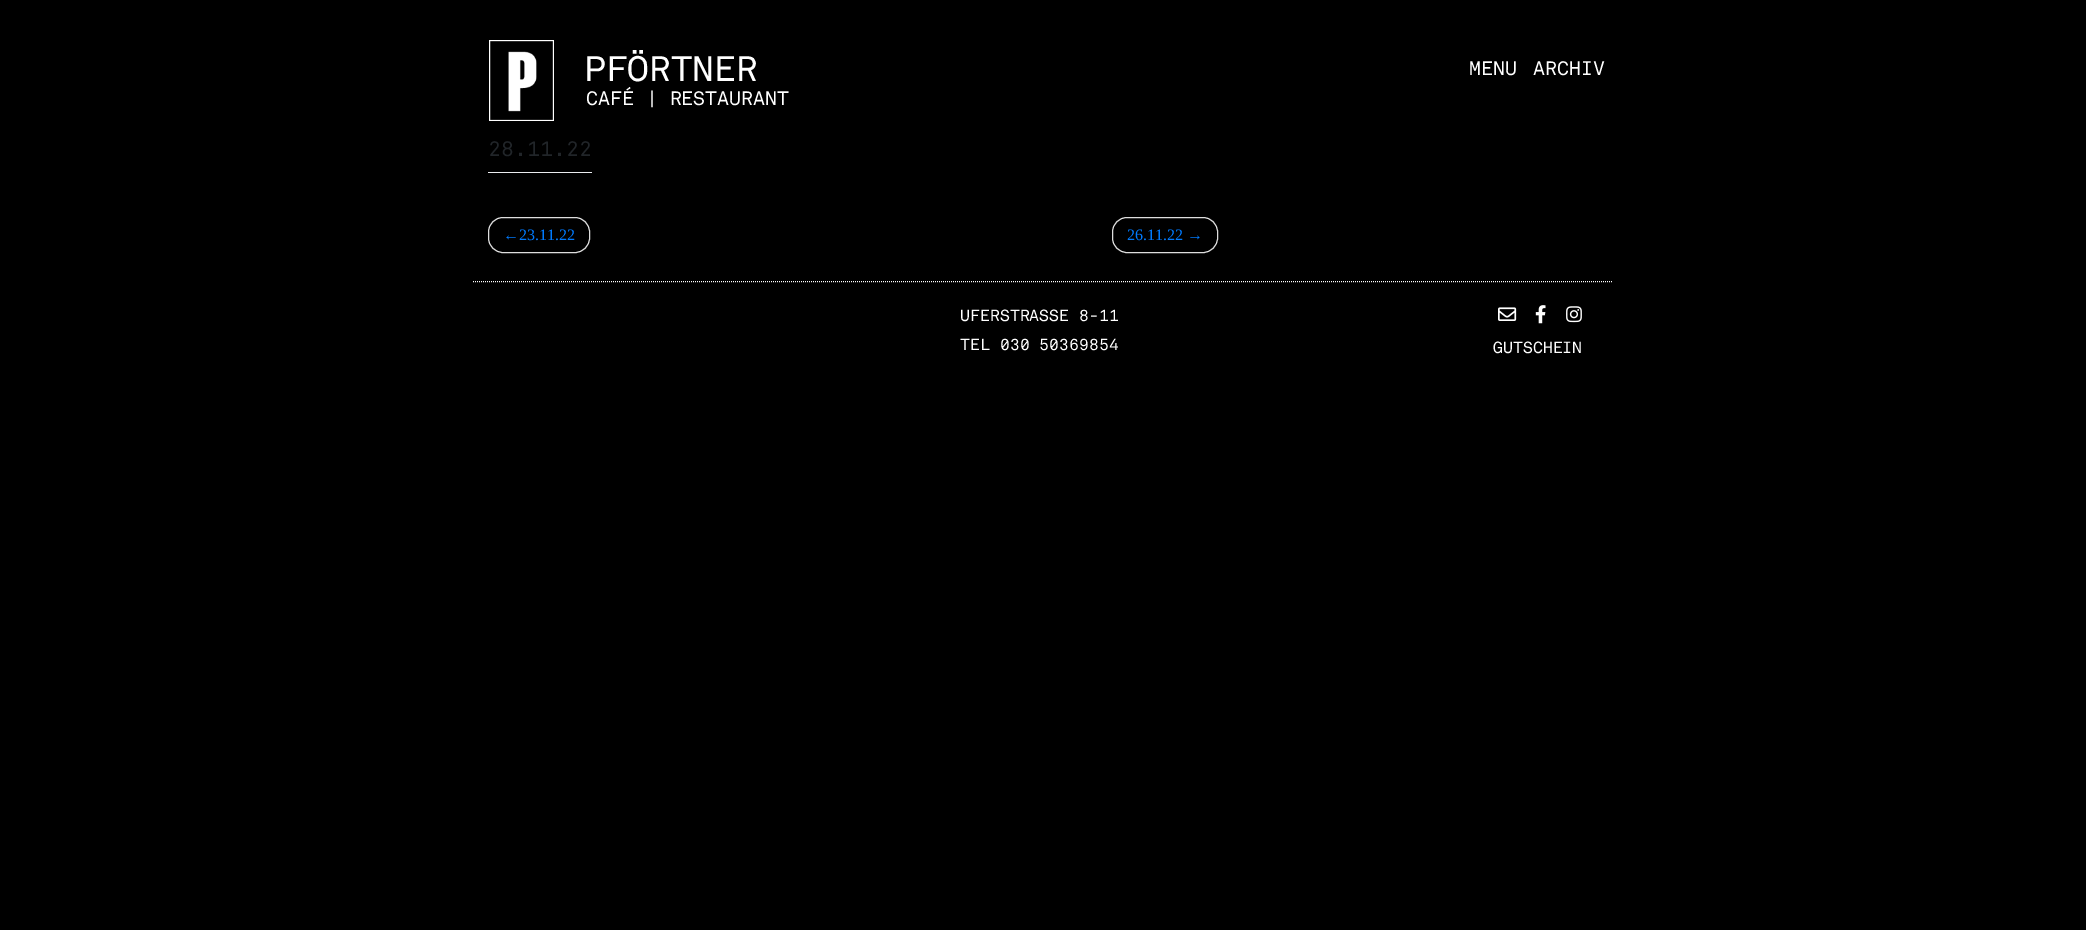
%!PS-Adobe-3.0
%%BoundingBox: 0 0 2086 930
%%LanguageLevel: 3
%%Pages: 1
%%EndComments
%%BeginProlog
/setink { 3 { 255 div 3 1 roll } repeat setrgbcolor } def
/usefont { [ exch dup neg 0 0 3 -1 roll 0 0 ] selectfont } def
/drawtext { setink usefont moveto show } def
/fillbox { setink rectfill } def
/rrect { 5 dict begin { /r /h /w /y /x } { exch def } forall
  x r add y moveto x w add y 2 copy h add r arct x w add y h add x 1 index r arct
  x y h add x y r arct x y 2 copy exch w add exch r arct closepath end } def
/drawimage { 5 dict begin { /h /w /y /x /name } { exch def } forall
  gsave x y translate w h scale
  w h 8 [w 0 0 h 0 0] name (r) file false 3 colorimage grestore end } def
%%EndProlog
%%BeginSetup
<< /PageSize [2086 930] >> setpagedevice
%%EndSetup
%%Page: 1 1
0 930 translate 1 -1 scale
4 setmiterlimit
0 0 2086 930 0 0 0 fillbox
(assets/img1.rgb) 489 40 65 81 drawimage
(PFÖRTNER) 584 81 /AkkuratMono-Regular 35 255 255 255 drawtext
(CAFÉ | RESTAURANT) 586 105 /AkkuratMono-Regular 19.25 255 255 255 drawtext
(MENU) 1469 75 /AkkuratMono-Regular 19.25 255 255 255 drawtext
(ARCHIV) 1533 75 /AkkuratMono-Regular 19.25 255 255 255 drawtext
(28.11.22) 488 156 /AkkuratMono-Regular 21 33 37 41 drawtext
488 172 104 1 234 236 239 fillbox
221 221 221 setink
488.5 217.5 101 35 14.5 rrect stroke
(←23.11.22) 503 240 /LiberationSerif-Regular 16 0 123 255 drawtext
221 221 221 setink
1112.5 217.5 105 35 14.5 rrect stroke
(26.11.22 →) 1127 240 /LiberationSerif-Regular 16 0 123 255 drawtext
255 255 255 setink
[1 1] 0 setdash
473 281.5 moveto 1613 281.5 lineto stroke
(UFERSTRASSE 8-11) 960 321 /AkkuratMono-Regular 16 255 255 255 drawtext
(TEL 030 50369854) 960 350 /AkkuratMono-Regular 16 255 255 255 drawtext
(assets/img2.rgb) 1498 307 19 14 drawimage
(assets/img3.rgb) 1535 305 11 19 drawimage
(assets/img4.rgb) 1566 306 16 17 drawimage
(GUTSCHEIN) 1493 353 /AkkuratMono-Regular 16 255 255 255 drawtext
showpage
%%EOF
